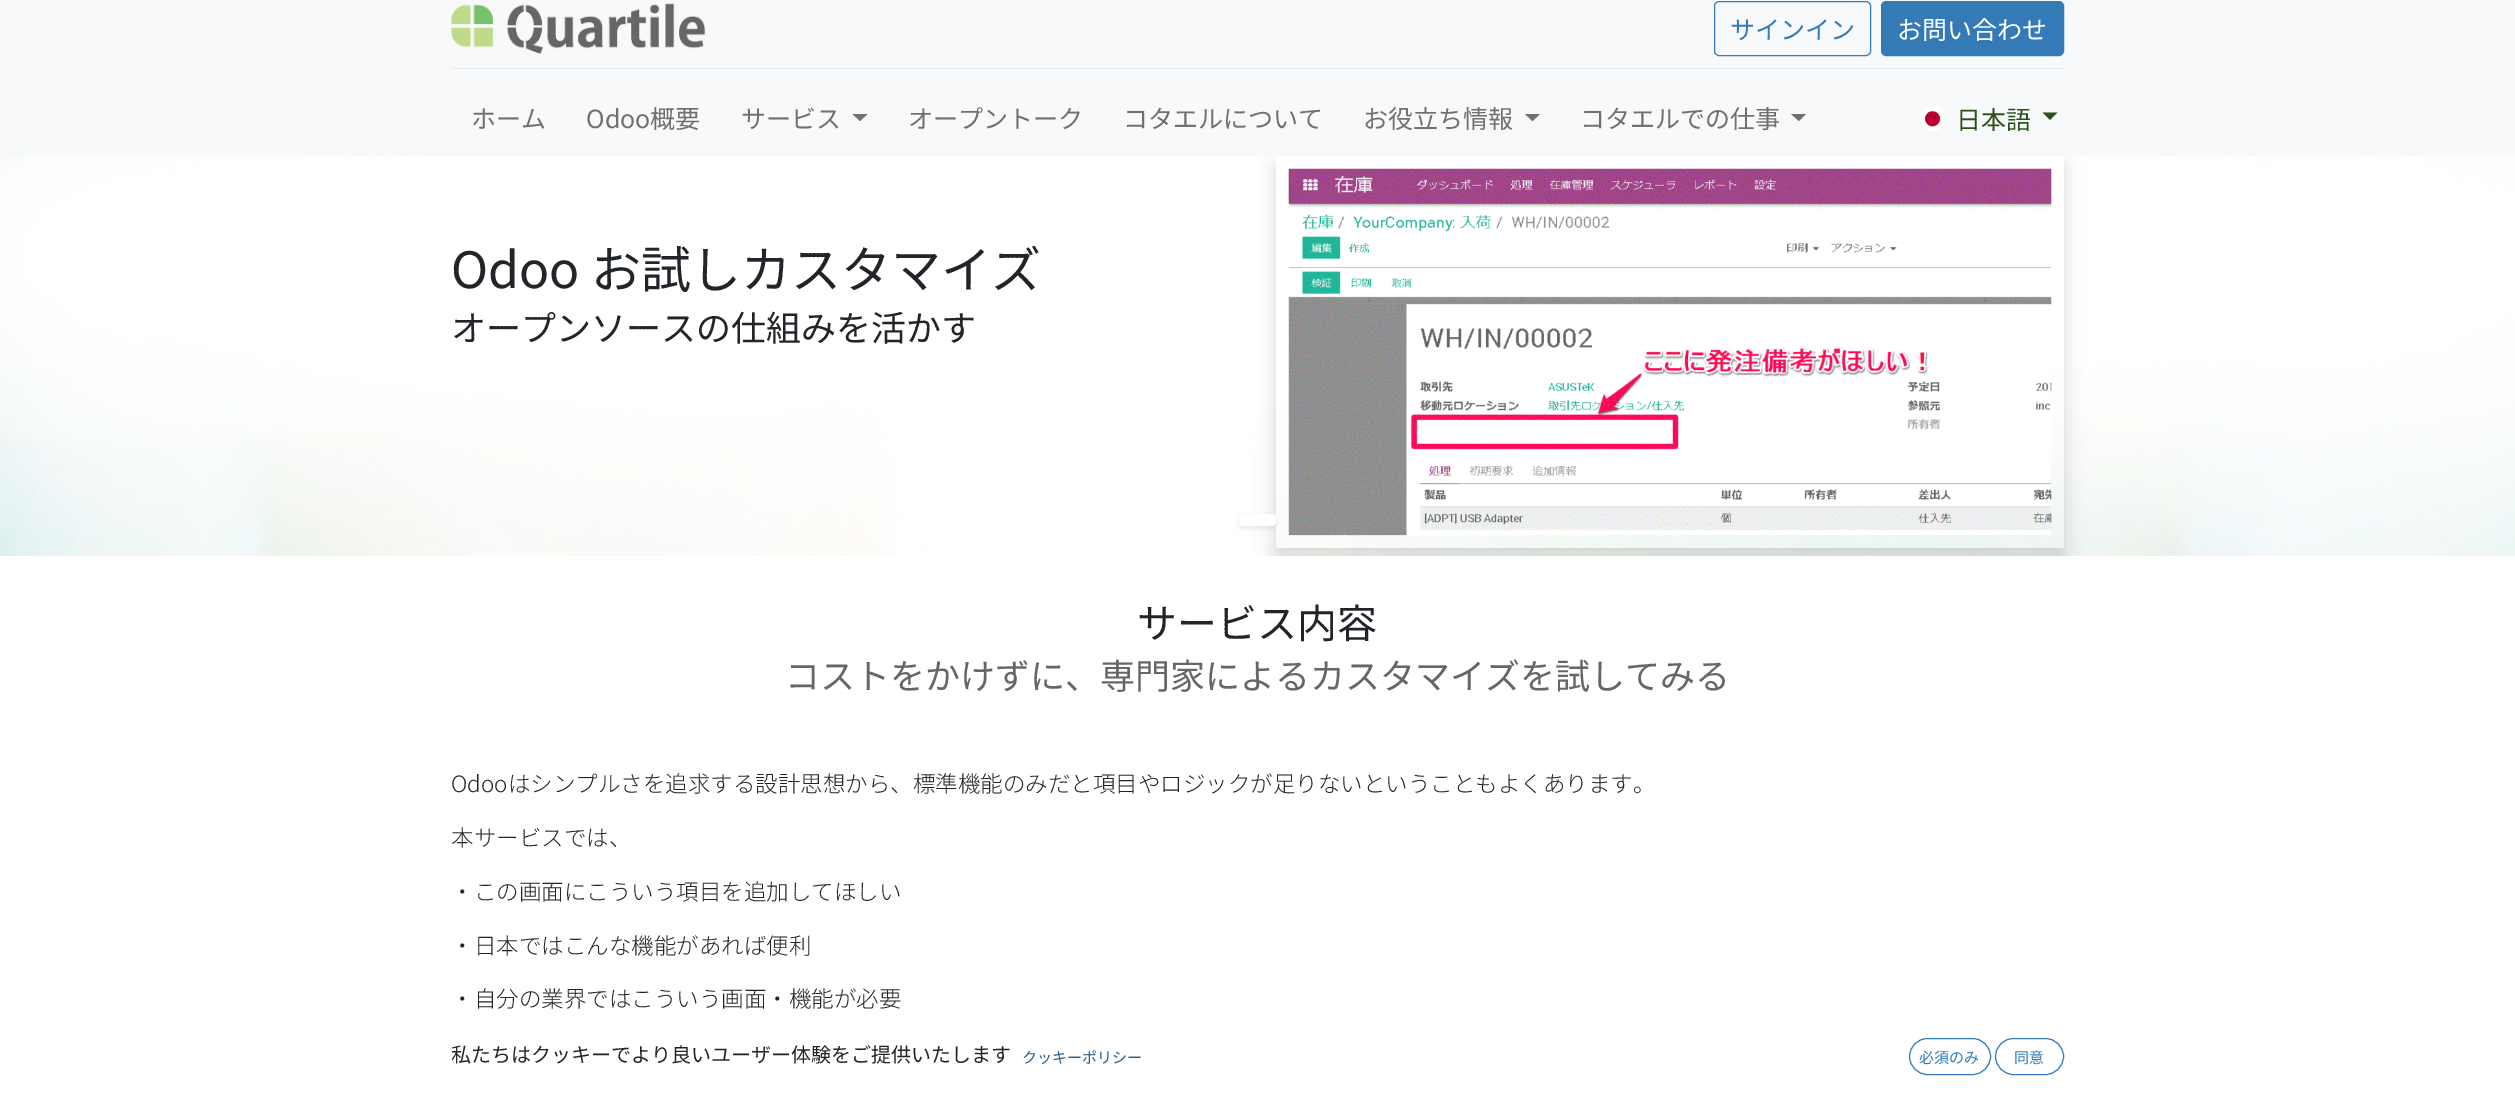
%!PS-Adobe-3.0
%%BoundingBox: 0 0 2515 1094
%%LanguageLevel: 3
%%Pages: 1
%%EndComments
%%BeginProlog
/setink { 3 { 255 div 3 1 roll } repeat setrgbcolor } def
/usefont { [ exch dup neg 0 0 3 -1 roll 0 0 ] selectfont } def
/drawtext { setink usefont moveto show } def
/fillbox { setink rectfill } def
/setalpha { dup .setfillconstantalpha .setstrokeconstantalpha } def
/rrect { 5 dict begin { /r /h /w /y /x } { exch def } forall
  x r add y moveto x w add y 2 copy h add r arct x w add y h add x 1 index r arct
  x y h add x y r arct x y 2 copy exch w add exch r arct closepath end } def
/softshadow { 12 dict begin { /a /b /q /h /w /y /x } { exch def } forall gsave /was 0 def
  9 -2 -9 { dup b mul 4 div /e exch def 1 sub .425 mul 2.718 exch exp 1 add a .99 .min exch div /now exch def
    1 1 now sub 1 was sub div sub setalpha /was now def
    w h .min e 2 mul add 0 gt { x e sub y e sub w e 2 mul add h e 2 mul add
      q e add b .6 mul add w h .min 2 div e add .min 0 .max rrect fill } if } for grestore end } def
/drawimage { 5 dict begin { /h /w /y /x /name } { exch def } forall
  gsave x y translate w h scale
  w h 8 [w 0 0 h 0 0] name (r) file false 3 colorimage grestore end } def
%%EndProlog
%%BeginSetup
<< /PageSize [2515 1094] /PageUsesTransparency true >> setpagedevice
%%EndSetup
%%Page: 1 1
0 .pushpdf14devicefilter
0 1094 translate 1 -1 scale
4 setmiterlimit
0 0 2515 1094 255 255 255 fillbox
(assets/img3.rgb) 0 156 2515 400 drawimage
gsave
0 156 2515 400 rectclip
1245 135 moveto 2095 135 lineto 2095 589 lineto 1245 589 lineto closepath 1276 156 moveto 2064 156 lineto 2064 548 lineto 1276 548 lineto closepath eoclip newpath
0 0 0 setink
1276 166 788 392 0 10 0.15 softshadow
grestore
0 0 2515 156 248 249 250 fillbox
(assets/img1.rgb) 451 3 254 51 drawimage
51 122 183 setink
1714.5 1.5 156 54 4.5 rrect stroke
(サインイン) 1730 39 /NotoSansJP-Regular 25 51 122 183 drawtext
1881.5 1.5 182 54 4.5 rrect gsave fill grestore
stroke
(お問い合わせ) 1897 39 /NotoSansJP-Regular 25 255 255 255 drawtext
451 68 1613 1 233 236 239 fillbox
(ホーム) 471 128 /NotoSansJP-Regular 25 112 112 113 drawtext
(Odoo概要) 586 128 /NotoSansJP-Regular 25 112 112 113 drawtext
(サービス) 741 128 /NotoSansJP-Regular 25 112 112 113 drawtext
852.5 114 moveto 867.5 114 lineto 860 121 lineto closepath fill
(オープントーク) 908 128 /NotoSansJP-Regular 25 112 112 113 drawtext
(コタエルについて) 1123 128 /NotoSansJP-Regular 25 112 112 113 drawtext
(お役立ち情報) 1363 128 /NotoSansJP-Regular 25 112 112 113 drawtext
1525 114 moveto 1540 114 lineto 1532.5 121 lineto closepath fill
(コタエルでの仕事) 1580 128 /NotoSansJP-Regular 25 112 112 113 drawtext
1791 114 moveto 1806 114 lineto 1799 121 lineto closepath fill
(assets/img2.rgb) 1920 107 25 24 drawimage
(日本語) 1956 129 /NotoSansJP-Regular 25 41 82 24 drawtext
2042.5 112.5 moveto 2057.5 112.5 lineto 2050 120 lineto closepath fill
(Odoo お試しカスタマイズ) 451 288 /NotoSansJP-Regular 50 33 37 41 drawtext
(オープンソースの仕組みを活かす) 451 341 /NotoSansJP-Regular 35 33 37 41 drawtext
(assets/img4.rgb) 1288 168 764 368 drawimage
0 0 0 setink
1239 516 37 13 4 2.5 0.07 softshadow
255 255 255 setink
1239 514 37 12 4 rrect fill
(サービス内容) 1137 638 /NotoSansJP-Regular 40 33 37 41 drawtext
(コストをかけずに、専門家によるカスタマイズを試してみる) 785 689 /NotoSansJP-Regular 35 100 102 105 drawtext
(Odooはシンプルさを追求する設計思想から、標準機能のみだと項目やロジックが足りないということもよくあります。) 451 792 /NotoSansJP-Light 22.5 33 37 41 drawtext
(本サービスでは、) 451 846 /NotoSansJP-Light 22.5 33 37 41 drawtext
(・この画面にこういう項目を追加してほしい) 451 900 /NotoSansJP-Light 22.5 33 37 41 drawtext
(・日本ではこんな機能があれば便利) 451 954 /NotoSansJP-Light 22.5 33 37 41 drawtext
(・自分の業界ではこういう画面・機能が必要) 451 1007 /NotoSansJP-Light 22.5 33 37 41 drawtext
(私たちはクッキーでより良いユーザー体験をご提供いたします) 451 1062 /NotoSansJP-Regular 20 33 37 41 drawtext
(クッキーポリシー) 1022 1063 /NotoSansJP-Regular 15 38 90 135 drawtext
51 122 183 setink
1909.5 1038.5 81 36 18 rrect stroke
(必須のみ) 1919 1063 /NotoSansJP-Regular 15 51 122 183 drawtext
1995.5 1038.5 68 36 18 rrect stroke
(同意) 2014 1063 /NotoSansJP-Regular 15 51 122 183 drawtext
.poppdf14devicefilter showpage
%%EOF
